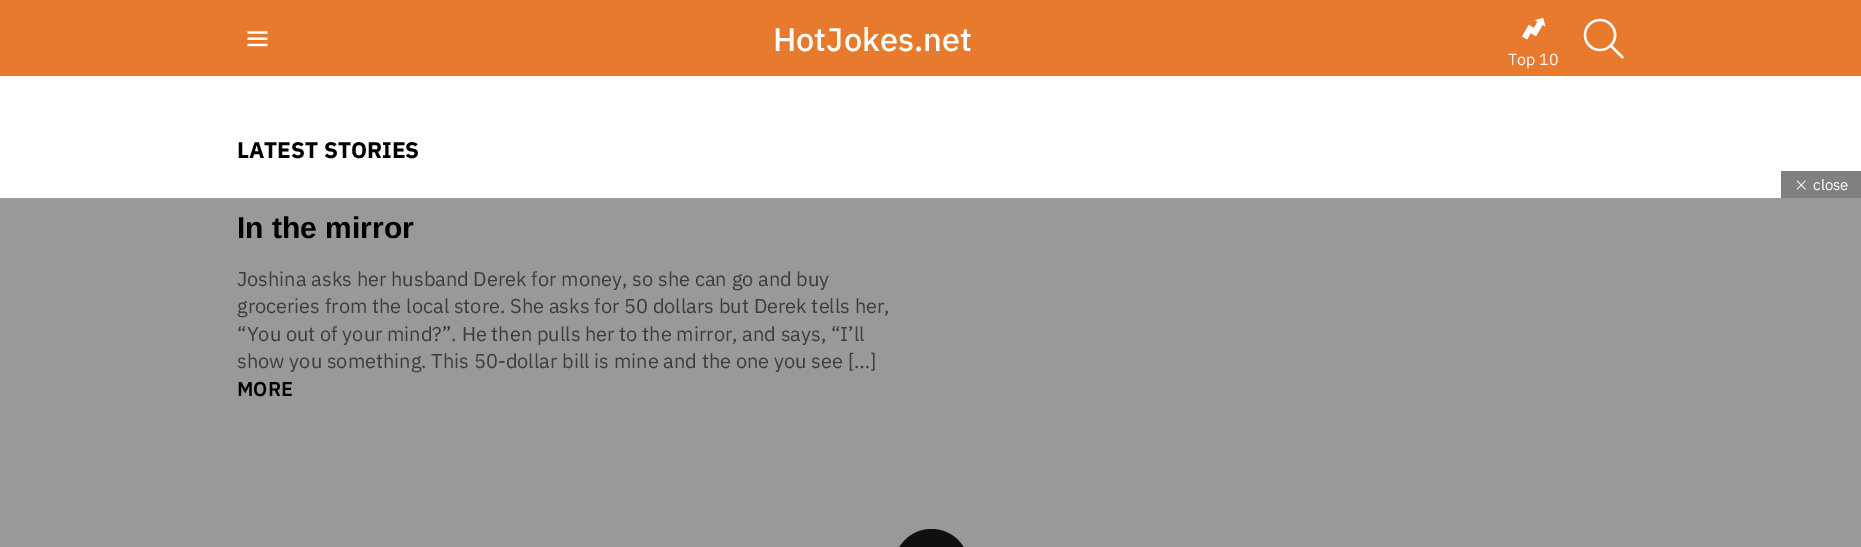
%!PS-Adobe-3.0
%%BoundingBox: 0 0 1861 547
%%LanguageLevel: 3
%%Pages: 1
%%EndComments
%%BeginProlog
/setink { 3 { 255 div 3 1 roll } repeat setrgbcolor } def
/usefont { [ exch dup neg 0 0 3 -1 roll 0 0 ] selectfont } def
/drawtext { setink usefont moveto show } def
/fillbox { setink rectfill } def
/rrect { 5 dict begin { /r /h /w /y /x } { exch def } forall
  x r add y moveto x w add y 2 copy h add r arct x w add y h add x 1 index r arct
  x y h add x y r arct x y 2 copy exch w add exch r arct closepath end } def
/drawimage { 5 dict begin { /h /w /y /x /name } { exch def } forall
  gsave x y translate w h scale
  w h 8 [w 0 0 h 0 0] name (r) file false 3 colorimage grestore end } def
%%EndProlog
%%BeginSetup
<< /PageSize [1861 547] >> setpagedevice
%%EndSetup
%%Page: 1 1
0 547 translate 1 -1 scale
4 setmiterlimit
0 0 1861 547 255 255 255 fillbox
0 198 1861 349 153 153 153 fillbox
0 0 1861 76 231 122 44 fillbox
(assets/img1.rgb) 247 31 21 16 drawimage
(HotJokes.net) 773 51 /IBMPlexSans-Medium 32.5 255 255 255 drawtext
(assets/img2.rgb) 1583 18 41 41 drawimage
(assets/img3.rgb) 1522 17 24 23 drawimage
(Top 10) 1508 65 /IBMPlexSans-Regular 16 255 255 255 drawtext
(LATEST STORIES) 237 158 /IBMPlexSans-Bold 22.5 0 0 0 drawtext
(In the mirror) 237 238 /LiberationSans-Bold 30 0 0 0 drawtext
(Joshina asks her husband Derek for money, so she can go and buy) 237 286 /IBMPlexSans-Regular 20 61 61 61 drawtext
(groceries from the local store. She asks for 50 dollars but Derek tells her,) 237 313 /IBMPlexSans-Regular 20 61 61 61 drawtext
(“You out of your mind?”. He then pulls her to the mirror, and says, “I’ll) 237 341 /IBMPlexSans-Regular 20 61 61 61 drawtext
(show you something. This 50-dollar bill is mine and the one you see […]) 237 368 /IBMPlexSans-Regular 20 61 61 61 drawtext
(MORE) 237 396 /IBMPlexSans-SemiBold 20 0 0 0 drawtext
16 16 16 setink
894 529 75 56 37.5 rrect fill
1781 171 80 27 128 128 128 fillbox
(assets/img4.rgb) 1796 180 10 10 drawimage
(close) 1813 190 /IBMPlexSans-Regular 15 255 255 255 drawtext
showpage
%%EOF
